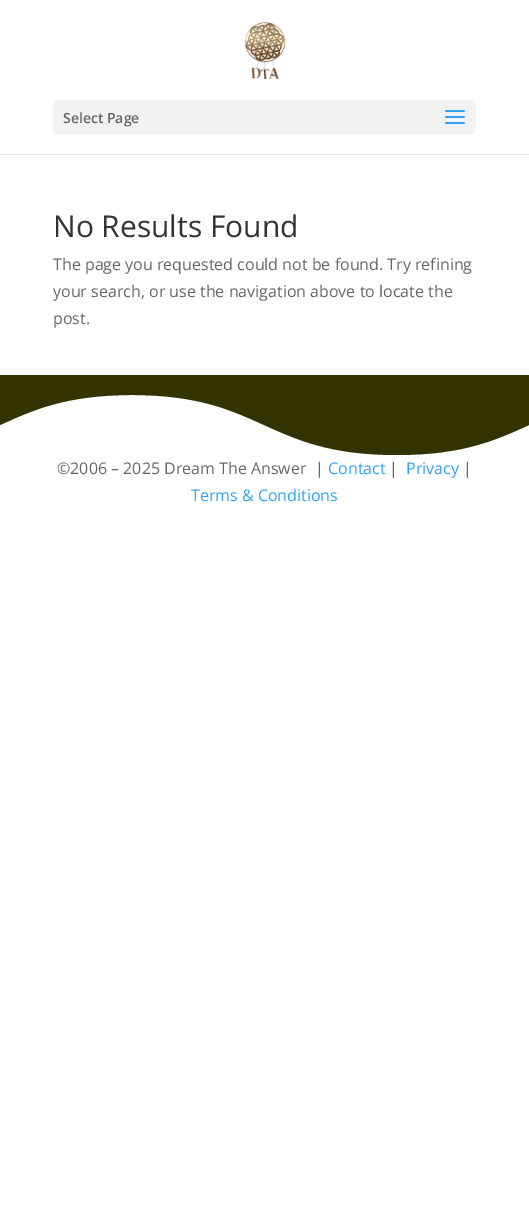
%!PS-Adobe-3.0
%%BoundingBox: 0 0 529 1219
%%LanguageLevel: 3
%%Pages: 1
%%EndComments
%%BeginProlog
/setink { 3 { 255 div 3 1 roll } repeat setrgbcolor } def
/usefont { [ exch dup neg 0 0 3 -1 roll 0 0 ] selectfont } def
/drawtext { setink usefont moveto show } def
/fillbox { setink rectfill } def
/rrect { 5 dict begin { /r /h /w /y /x } { exch def } forall
  x r add y moveto x w add y 2 copy h add r arct x w add y h add x 1 index r arct
  x y h add x y r arct x y 2 copy exch w add exch r arct closepath end } def
/drawimage { 5 dict begin { /h /w /y /x /name } { exch def } forall
  gsave x y translate w h scale
  w h 8 [w 0 0 h 0 0] name (r) file false 3 colorimage grestore end } def
%%EndProlog
%%BeginSetup
<< /PageSize [529 1219] >> setpagedevice
%%EndSetup
%%Page: 1 1
0 1219 translate 1 -1 scale
4 setmiterlimit
0 0 529 1219 255 255 255 fillbox
0 154 529 1 230 230 230 fillbox
(assets/img1.rgb) 244 21 42 59 drawimage
242 242 242 setink
53 100 423 34 5 rrect fill
(Select Page) 63 123 /OpenSans-SemiBold 14 102 102 102 drawtext
(assets/img2.rgb) 445 110 20 14 drawimage
(No Results Found) 53 237 /OpenSans-Regular 30 51 51 51 drawtext
(The page you requested could not be found. Try refining) 53 270 /OpenSans-Regular 16 102 102 102 drawtext
(your search, or use the navigation above to locate the) 53 297 /OpenSans-Regular 16 102 102 102 drawtext
(post.) 53 324 /OpenSans-Regular 16 102 102 102 drawtext
50 51 0 setink
132 395 moveto 66 395 33 410 0 425 curveto 0 375 lineto 529 375 lineto 529 425 lineto 496 440 463 455 397 455 curveto 264 455 264 395 132 395 curveto closepath fill
(©2006 – 2025 Dream The Answer  |) 57 474 /OpenSans-Regular 16 102 102 102 drawtext
(Contact) 328 474 /OpenSans-Regular 16 46 163 242 drawtext
(|) 389 474 /OpenSans-Regular 16 102 102 102 drawtext
(Privacy) 406 474 /OpenSans-Regular 16 46 163 242 drawtext
(|) 463 474 /OpenSans-Regular 16 102 102 102 drawtext
(Terms & Conditions) 191 501 /OpenSans-Regular 16 46 163 242 drawtext
showpage
%%EOF
